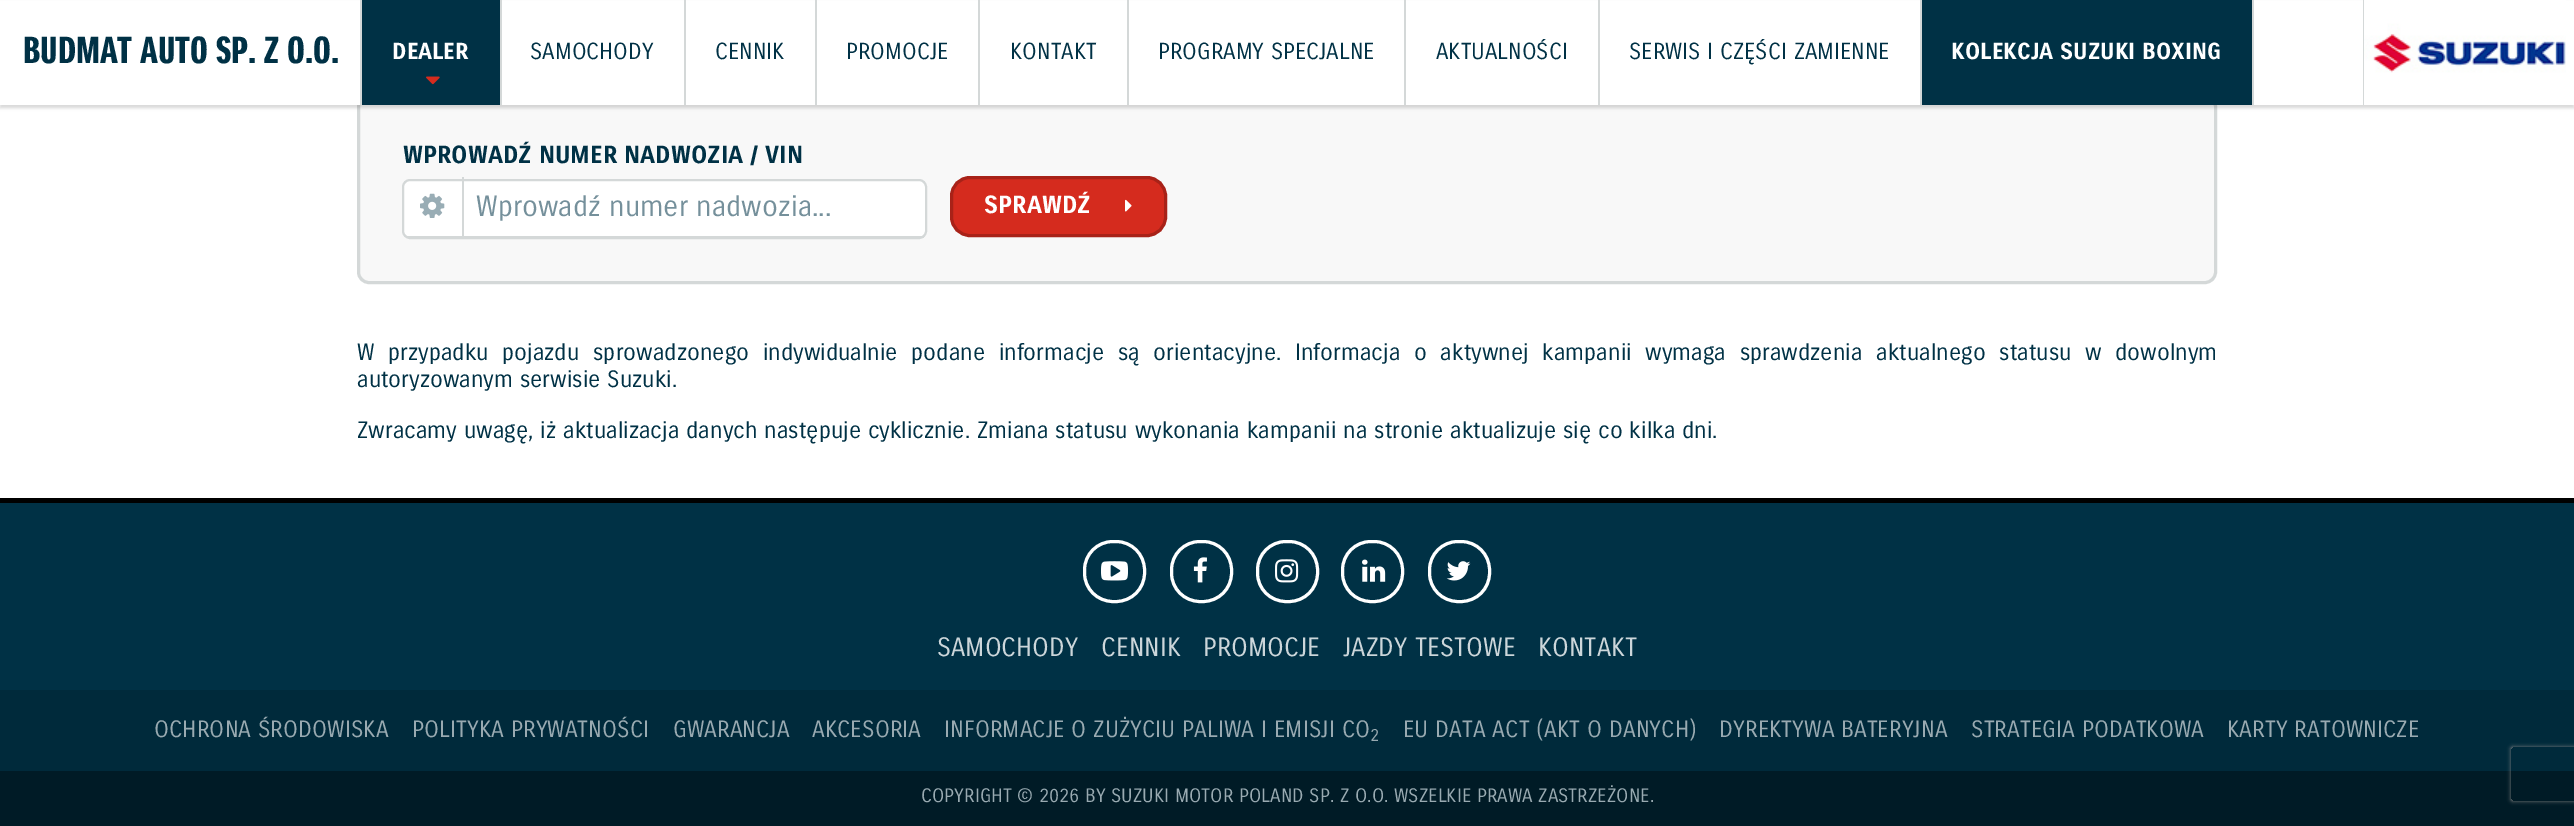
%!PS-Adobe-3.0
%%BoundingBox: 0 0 2574 826
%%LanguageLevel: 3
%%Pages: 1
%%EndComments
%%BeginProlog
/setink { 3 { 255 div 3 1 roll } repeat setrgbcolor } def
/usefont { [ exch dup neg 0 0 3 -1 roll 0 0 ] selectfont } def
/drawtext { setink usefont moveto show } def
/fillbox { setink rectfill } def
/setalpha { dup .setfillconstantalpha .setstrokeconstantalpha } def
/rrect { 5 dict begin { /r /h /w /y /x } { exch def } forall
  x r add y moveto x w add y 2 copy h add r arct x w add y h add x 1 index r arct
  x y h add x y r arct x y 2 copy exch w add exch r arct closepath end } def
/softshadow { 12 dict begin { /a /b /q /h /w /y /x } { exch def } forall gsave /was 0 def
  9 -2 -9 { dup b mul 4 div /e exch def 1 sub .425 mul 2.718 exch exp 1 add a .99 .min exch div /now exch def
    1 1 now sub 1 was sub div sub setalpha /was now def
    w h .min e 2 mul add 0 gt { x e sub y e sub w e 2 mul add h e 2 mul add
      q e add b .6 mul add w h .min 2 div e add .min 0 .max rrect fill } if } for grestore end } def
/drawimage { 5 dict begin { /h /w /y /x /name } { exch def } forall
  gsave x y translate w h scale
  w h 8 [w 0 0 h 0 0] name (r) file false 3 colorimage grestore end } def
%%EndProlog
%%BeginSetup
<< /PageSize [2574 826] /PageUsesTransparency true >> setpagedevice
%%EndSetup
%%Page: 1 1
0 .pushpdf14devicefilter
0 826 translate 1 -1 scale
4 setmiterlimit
0 0 2574 826 255 255 255 fillbox
248 248 248 setink
358.5 96.5 1857 186 10.5 rrect gsave fill grestore
212 216 216 setink
3 setlinewidth
stroke
0 0 0 setink
0 3 2574 105 0 1.5 0.15 softshadow
0 1 2574 104 255 255 255 fillbox
360 0 2 105 212 216 216 fillbox
(BUDMAT AUTO SP. Z O.O.) 23 63 /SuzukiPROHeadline-Bold 36.5 0 49 69 drawtext
500 0 2 105 212 216 216 fillbox
362 0 138 105 0 49 69 fillbox
(DEALER) 392 59 /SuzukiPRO-Regular 22.5 255 255 255 drawtext
(assets/img1.rgb) 426 76 14 9 drawimage
684 0 2 105 212 216 216 fillbox
(SAMOCHODY) 530 59 /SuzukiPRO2-Regular 22.5 0 49 69 drawtext
815 0 2 105 212 216 216 fillbox
(CENNIK) 715 59 /SuzukiPRO2-Regular 22.5 0 49 69 drawtext
978 0 2 105 212 216 216 fillbox
(PROMOCJE) 846 59 /SuzukiPRO2-Regular 22.5 0 49 69 drawtext
1127 0 2 105 212 216 216 fillbox
(KONTAKT) 1010 59 /SuzukiPRO2-Regular 22.5 0 49 69 drawtext
1404 0 2 105 212 216 216 fillbox
(PROGRAMY SPECJALNE) 1158 59 /SuzukiPRO2-Regular 22.5 0 49 69 drawtext
1598 0 2 105 212 216 216 fillbox
(AKTUALNOŚCI) 1436 59 /SuzukiPRO2-Regular 22.5 0 49 69 drawtext
1920 0 2 105 212 216 216 fillbox
(SERWIS I CZĘŚCI ZAMIENNE) 1629 59 /SuzukiPRO2-Regular 22.5 0 49 69 drawtext
1922 0 330 105 0 49 69 fillbox
2252 0 2 105 212 216 216 fillbox
(KOLEKCJA SUZUKI BOXING) 1951 59 /SuzukiPRO-Regular 22.5 255 255 255 drawtext
2363 0 1 105 212 216 216 fillbox
(assets/img2.rgb) 2364 0 202 105 drawimage
(WPROWADŹ NUMER NADWOZIA / VIN) 403 163 /SuzukiPRO-Regular 24.1 0 49 69 drawtext
255 255 255 setink
410 180 moveto 920 180 lineto 923 180 926 183 926 186 curveto 926 231 lineto 926 233 923 236 920 236 curveto 410 236 lineto 406 236 404 233 404 231 curveto 404 186 lineto 404 183 406 180 410 180 curveto closepath fill
212 216 216 setink
2 setlinewidth
403 180 523 58 7 rrect stroke
407 236 517 2 212 216 216 fillbox
462 177 2 60 212 216 216 fillbox
(assets/img3.rgb) 420 193 25 25 drawimage
(Wprowadź numer nadwozia...) 476 216 /SuzukiPRO2-Regular 28.4 117 144 155 drawtext
213 43 30 setink
951.5 177.5 214 58 18.5 rrect gsave fill grestore
168 34 24 setink
3 setlinewidth
stroke
(SPRAWDŹ) 984 213 /SuzukiPRO-Regular 24.1 255 255 255 drawtext
(assets/img4.rgb) 1125 199 7 13 drawimage
/SuzukiPRO2-Regular 22.95 usefont
0 49 69 setink
357 360 moveto 6.75 0 32 (W przypadku pojazdu) widthshow
593 360 moveto 6.75 0 32 (sprowadzonego indywidualnie podane informacje są orientacyjne. Informacja o aktywnej kampanii wymaga sprawdzenia aktualnego statusu w dowolnym) widthshow
(autoryzowanym serwisie Suzuki.) 357 387 /SuzukiPRO2-Regular 22.95 0 49 69 drawtext
(Zwracamy uwagę, iż aktualizacja danych następuje cyklicznie. Zmiana statusu wykonania kampanii na stronie aktualizuje się co kilka dni.) 357 438 /SuzukiPRO2-Regular 22.95 0 49 69 drawtext
0 503 2574 187 0 49 69 fillbox
0 498 2574 5 0 0 0 fillbox
255 255 255 setink
1084.5 541.5 60 60 28.5 rrect stroke
(assets/img5.rgb) 1101 561 27 20 drawimage
1171.5 541.5 60 60 28.5 rrect stroke
(assets/img6.rgb) 1193 557 14 26 drawimage
1257.5 541.5 60 60 28.5 rrect stroke
(assets/img7.rgb) 1275 559 24 24 drawimage
1342.5 541.5 60 60 28.5 rrect stroke
(assets/img8.rgb) 1362 559 24 23 drawimage
1429.5 541.5 60 60 28.5 rrect stroke
(assets/img9.rgb) 1446 561 25 20 drawimage
(SAMOCHODY) 937 656 /SuzukiPRO2-Regular 25.75 204 214 218 drawtext
(CENNIK) 1101 656 /SuzukiPRO2-Regular 25.75 204 214 218 drawtext
(PROMOCJE) 1203 656 /SuzukiPRO2-Regular 25.75 204 214 218 drawtext
(JAZDY TESTOWE) 1343 656 /SuzukiPRO2-Regular 25.75 204 214 218 drawtext
(KONTAKT) 1538 656 /SuzukiPRO2-Regular 25.75 204 214 218 drawtext
0 690 2574 81 0 42 59 fillbox
(OCHRONA ŚRODOWISKA) 154 737 /SuzukiPRO2-Regular 22.95 153 170 177 drawtext
(POLITYKA PRYWATNOŚCI) 412 737 /SuzukiPRO2-Regular 22.95 153 170 177 drawtext
(GWARANCJA) 673 737 /SuzukiPRO2-Regular 22.95 153 170 177 drawtext
(AKCESORIA) 812 737 /SuzukiPRO2-Regular 22.95 153 170 177 drawtext
(INFORMACJE O ZUŻYCIU PALIWA I EMISJI CO) 944 737 /SuzukiPRO2-Regular 22.95 153 170 177 drawtext
(2) 1370 741 /SuzukiPRO2-Regular 17 153 170 177 drawtext
(EU DATA ACT \(AKT O DANYCH\)) 1403 737 /SuzukiPRO2-Regular 22.95 153 170 177 drawtext
(DYREKTYWA BATERYJNA) 1719 737 /SuzukiPRO2-Regular 22.95 153 170 177 drawtext
(STRATEGIA PODATKOWA) 1971 737 /SuzukiPRO2-Regular 22.95 153 170 177 drawtext
(KARTY RATOWNICZE) 2227 737 /SuzukiPRO2-Regular 22.95 153 170 177 drawtext
0 771 2574 55 0 27 38 fillbox
(COPYRIGHT © 2026 BY SUZUKI MOTOR POLAND SP. Z O.O. WSZELKIE PRAWA ZASTRZEŻONE.) 921 802 /SuzukiPRO2-Regular 18.9 153 170 177 drawtext
gsave
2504 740 moveto 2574 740 lineto 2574 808 lineto 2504 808 lineto closepath 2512.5 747 moveto 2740.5 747 lineto 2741.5 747 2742 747.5 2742 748.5 curveto 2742 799.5 lineto 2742 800.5 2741.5 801 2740.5 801 curveto 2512.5 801 lineto 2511.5 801 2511 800.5 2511 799.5 curveto 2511 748.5 lineto 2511 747.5 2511.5 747 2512.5 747 curveto closepath eoclip newpath
128 128 128 setink
2511 747 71 54 1.5 2 1 softshadow
grestore
.poppdf14devicefilter showpage
%%EOF
